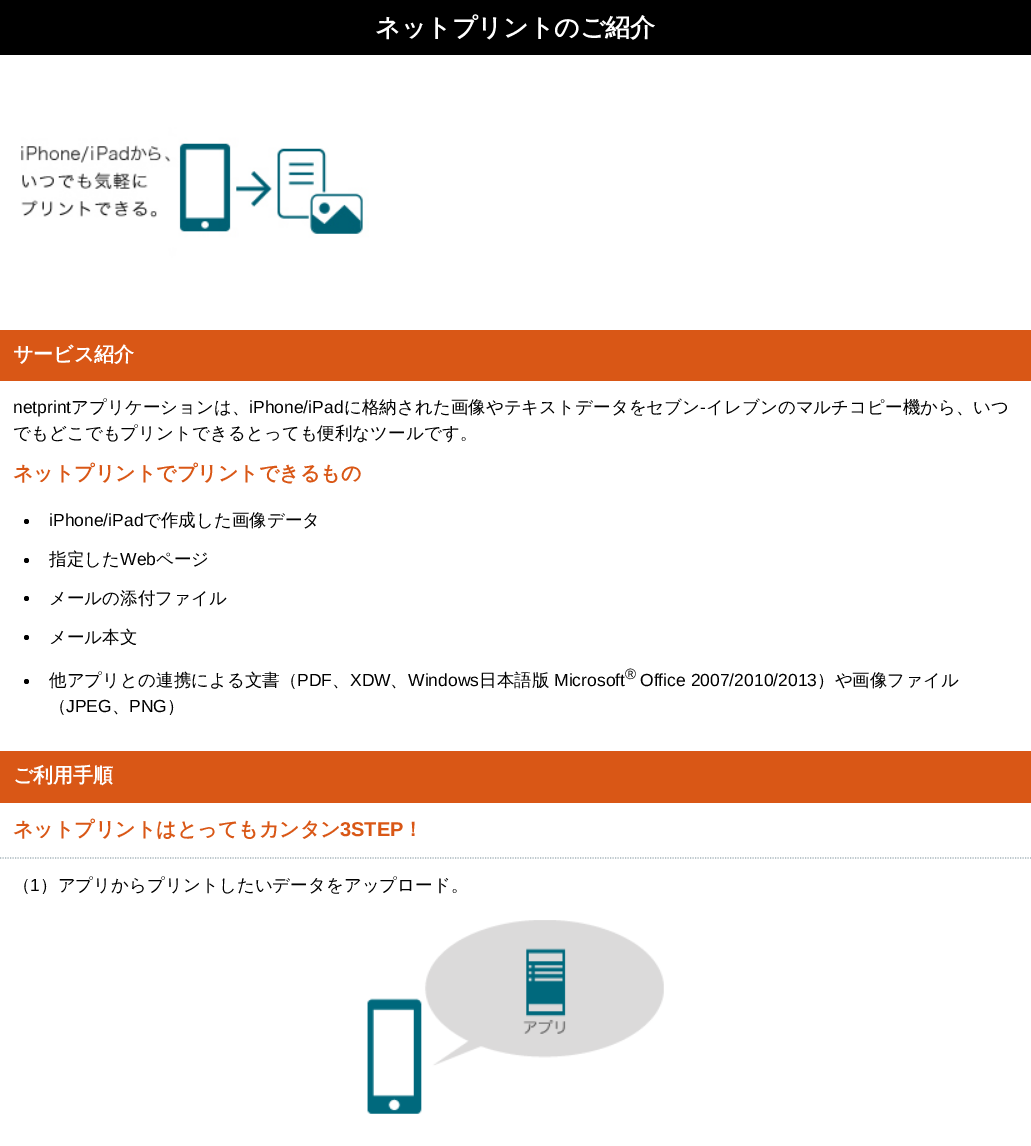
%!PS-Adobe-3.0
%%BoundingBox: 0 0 1031 1146
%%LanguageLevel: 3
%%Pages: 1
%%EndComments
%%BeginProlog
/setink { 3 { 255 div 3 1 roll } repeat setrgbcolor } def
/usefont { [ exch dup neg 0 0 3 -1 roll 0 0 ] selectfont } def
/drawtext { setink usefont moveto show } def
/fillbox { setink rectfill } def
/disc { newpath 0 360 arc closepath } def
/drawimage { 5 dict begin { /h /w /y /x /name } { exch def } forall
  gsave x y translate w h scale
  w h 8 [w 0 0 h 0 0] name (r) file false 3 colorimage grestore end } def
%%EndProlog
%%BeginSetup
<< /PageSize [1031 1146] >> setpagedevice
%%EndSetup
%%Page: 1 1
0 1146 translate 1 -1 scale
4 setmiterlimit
0 0 1031 1146 255 255 255 fillbox
0 0 1031 55 0 0 0 fillbox
(ネットプリントのご紹介) 375 36 /WenQuanYiZenHei-Bold 25 255 255 255 drawtext
(assets/img1.rgb) 21 118 348 174 drawimage
0 330 1031 51 217 87 22 fillbox
(サービス紹介) 13 361 /WenQuanYiZenHei-Bold 20 255 255 255 drawtext
(netprint) 13 413 /LiberationSans-Regular 17.5 0 0 0 drawtext
(アプリケーションは、) 71 413 /WenQuanYiZenHei-Medium 17.5 0 0 0 drawtext
(iPhone/iPad) 249 413 /LiberationSans-Regular 17.5 0 0 0 drawtext
(に格納された画像やテキストデータをセブン) 344 413 /WenQuanYiZenHei-Medium 17.5 0 0 0 drawtext
(-) 700 413 /LiberationSans-Regular 17.5 0 0 0 drawtext
(イレブンのマルチコピー機から、いつ) 706 413 /WenQuanYiZenHei-Medium 17.5 0 0 0 drawtext
(でもどこでもプリントできるとっても便利なツールです。) 13 439 /WenQuanYiZenHei-Medium 17.5 0 0 0 drawtext
(ネットプリントでプリントできるもの) 13 480 /WenQuanYiZenHei-Bold 20 217 87 22 drawtext
0 0 0 setink
26.5 521.5 2.5 disc fill
(iPhone/iPad) 49 526 /LiberationSans-Regular 17.5 0 0 0 drawtext
(で作成した画像データ) 143 526 /WenQuanYiZenHei-Medium 17.5 0 0 0 drawtext
26.5 560.5 2.5 disc fill
(指定した) 49 565 /WenQuanYiZenHei-Medium 17.5 0 0 0 drawtext
(Web) 120 565 /LiberationSans-Regular 17.5 0 0 0 drawtext
(ページ) 156 565 /WenQuanYiZenHei-Medium 17.5 0 0 0 drawtext
26.5 598.5 2.5 disc fill
(メールの添付ファイル) 49 604 /WenQuanYiZenHei-Medium 17.5 0 0 0 drawtext
26.5 637.5 2.5 disc fill
(メール本文) 49 643 /WenQuanYiZenHei-Medium 17.5 0 0 0 drawtext
26.5 681.5 2.5 disc fill
(他アプリとの連携による文書（) 49 686 /WenQuanYiZenHei-Medium 17.5 0 0 0 drawtext
(PDF) 297 686 /LiberationSans-Regular 17.5 0 0 0 drawtext
(XDW) 350 686 /LiberationSans-Regular 17.5 0 0 0 drawtext
(Windows) 408 686 /LiberationSans-Regular 17.5 0 0 0 drawtext
(日本語版) 479 686 /WenQuanYiZenHei-Medium 17.5 0 0 0 drawtext
(Microsoft) 554 686 /LiberationSans-Regular 17.5 0 0 0 drawtext
(®) 625 679 /LiberationSans-Regular 15 0 0 0 drawtext
(Office 2007/2010/2013) 640 686 /LiberationSans-Regular 17.5 0 0 0 drawtext
(）や画像ファイル) 817 686 /WenQuanYiZenHei-Medium 17.5 0 0 0 drawtext
(、) 332 686 /WenQuanYiZenHei-Medium 17.5 0 0 0 drawtext
(、) 390 686 /WenQuanYiZenHei-Medium 17.5 0 0 0 drawtext
(（) 49 712 /WenQuanYiZenHei-Medium 17.5 0 0 0 drawtext
(JPEG) 66 712 /LiberationSans-Regular 17.5 0 0 0 drawtext
(、) 112 712 /WenQuanYiZenHei-Medium 17.5 0 0 0 drawtext
(PNG) 129 712 /LiberationSans-Regular 17.5 0 0 0 drawtext
(）) 167 712 /WenQuanYiZenHei-Medium 17.5 0 0 0 drawtext
0 751 1031 52 217 87 22 fillbox
(ご利用手順) 13 782 /WenQuanYiZenHei-Bold 20 255 255 255 drawtext
(ネットプリントはとってもカンタン) 13 836 /WenQuanYiZenHei-Bold 20 217 87 22 drawtext
(3STEP) 340 836 /LiberationSans-Bold 20 217 87 22 drawtext
(！) 403 836 /WenQuanYiZenHei-Bold 20 217 87 22 drawtext
165 180 186 setink
1.2 setlinewidth
[1.25 1.25] 0 setdash
0 858 moveto 1031 858 lineto stroke
(（) 13 891 /WenQuanYiZenHei-Medium 17.5 0 0 0 drawtext
(1) 30 891 /LiberationSans-Regular 17.5 0 0 0 drawtext
(）アプリからプリントしたいデータをアップロード。) 40 891 /WenQuanYiZenHei-Medium 17.5 0 0 0 drawtext
(assets/img2.rgb) 367 920 297 194 drawimage
showpage
%%EOF
